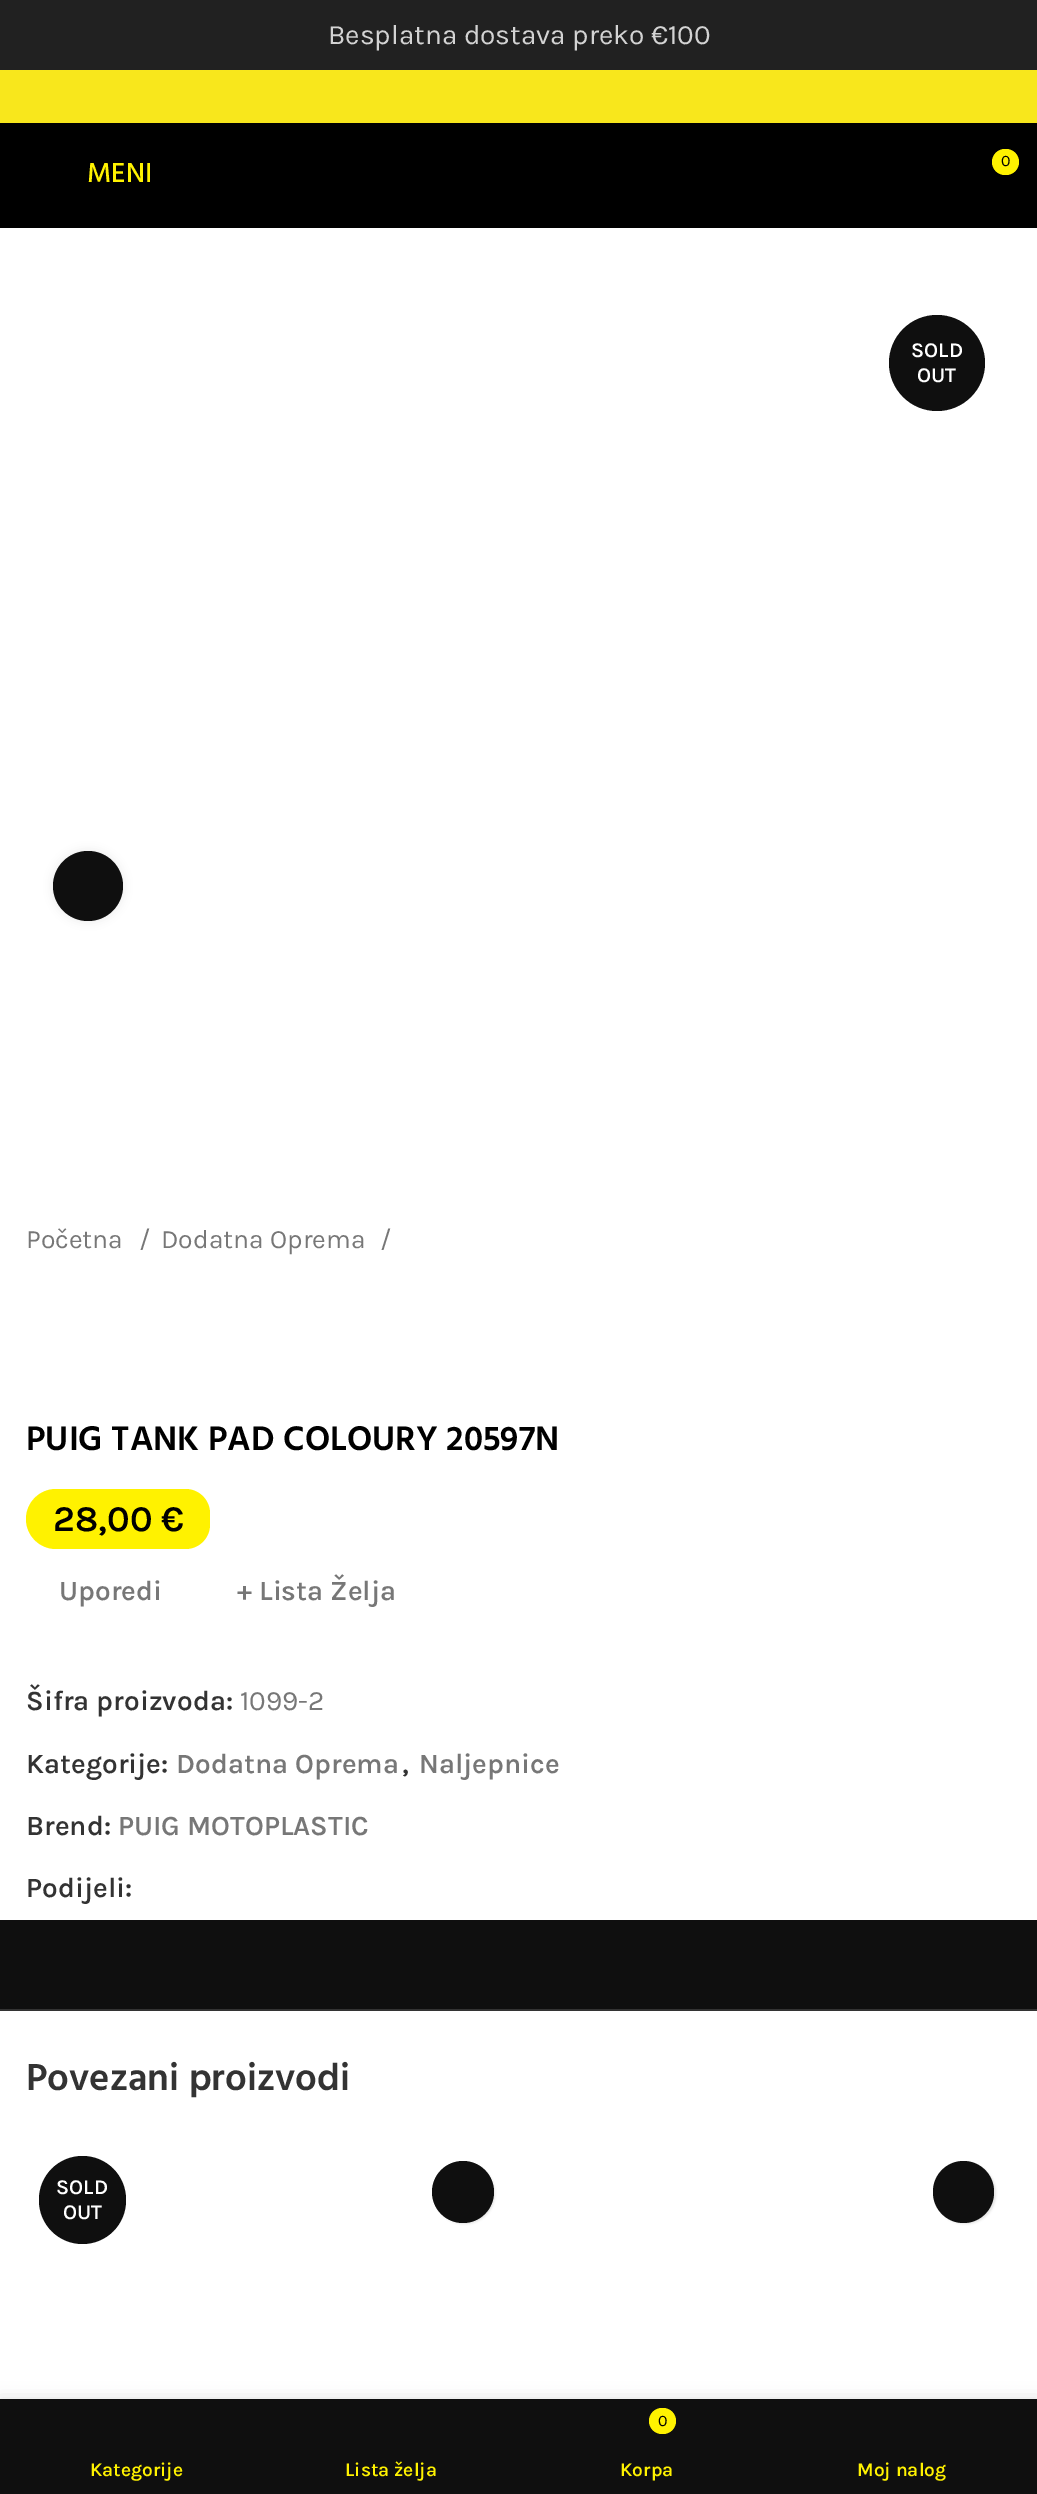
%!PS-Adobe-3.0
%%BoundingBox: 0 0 1037 2494
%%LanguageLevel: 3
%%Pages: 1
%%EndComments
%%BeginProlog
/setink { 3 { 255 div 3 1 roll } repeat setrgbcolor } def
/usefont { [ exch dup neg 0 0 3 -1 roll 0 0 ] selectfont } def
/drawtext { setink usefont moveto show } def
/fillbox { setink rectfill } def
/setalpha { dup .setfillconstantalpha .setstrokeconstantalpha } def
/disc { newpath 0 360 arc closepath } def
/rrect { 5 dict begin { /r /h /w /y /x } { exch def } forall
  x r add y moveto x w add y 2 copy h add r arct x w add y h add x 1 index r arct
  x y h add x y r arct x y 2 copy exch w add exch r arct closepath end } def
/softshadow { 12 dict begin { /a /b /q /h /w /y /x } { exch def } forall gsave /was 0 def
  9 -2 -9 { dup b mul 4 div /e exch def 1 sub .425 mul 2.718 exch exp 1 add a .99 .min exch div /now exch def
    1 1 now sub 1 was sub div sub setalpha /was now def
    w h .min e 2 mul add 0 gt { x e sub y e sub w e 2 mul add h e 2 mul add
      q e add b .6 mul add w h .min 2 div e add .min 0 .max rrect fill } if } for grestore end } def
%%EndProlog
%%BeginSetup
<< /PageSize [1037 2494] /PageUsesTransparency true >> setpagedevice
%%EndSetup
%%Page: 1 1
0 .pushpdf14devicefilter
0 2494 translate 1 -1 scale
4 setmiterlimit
0 0 1037 2494 33 33 33 fillbox
(Besplatna dostava preko €100) 328 44 /Karla-Regular 28 211 211 211 drawtext
0 70 1037 53 248 231 28 fillbox
0 123 1037 105 0 0 0 fillbox
255 242 0 setink
992 149 27 26 13 rrect fill
(0) 1001 166 /Karla-Regular 16 0 0 0 drawtext
(MENI) 87 182 /Hind-Medium 28 255 242 0 drawtext
0 228 1037 2171 255 255 255 fillbox
15 15 15 setink
937 363 48 disc fill
(SOLD) 911 357 /Karla-SemiBold 21 255 255 255 drawtext
(OUT) 917 382 /Karla-SemiBold 21 255 255 255 drawtext
0 0 0 setink
53 851 70 70 35 4.5 0.08 softshadow
15 15 15 setink
88 886 35 disc fill
(Početna) 26 1248 /Karla-Regular 26.5 119 119 119 drawtext
(/) 139 1248 /Karla-Regular 26.5 119 119 119 drawtext
(Dodatna Oprema) 161 1248 /Karla-Regular 26.5 119 119 119 drawtext
(/) 380 1248 /Karla-Regular 26.5 119 119 119 drawtext
(PUIG TANK PAD COLOURY 20597N) 26 1450 /Hind-SemiBold 35 0 0 0 drawtext
255 242 0 setink
56 1489 moveto 161 1489 lineto 161 1549 lineto 56 1549 lineto 39.5 1549 26 1535.5 26 1519 curveto 26 1502.5 39.5 1489 56 1489 curveto closepath fill
161 1489 moveto 185.5 1489 lineto 199 1489 210 1500 210 1513.5 curveto 210 1524.5 lineto 210 1538 199 1549 185.5 1549 curveto 161 1549 lineto closepath fill
(28,00 €) 53 1531 /Karla-SemiBold 36.5 0 0 0 drawtext
(Uporedi) 59 1600 /Karla-SemiBold 28 119 119 119 drawtext
(+ Lista Želja) 237 1600 /Karla-SemiBold 28 119 119 119 drawtext
(Šifra proizvoda:) 26 1710 /Karla-SemiBold 28 51 51 51 drawtext
(1099-2) 240 1710 /Karla-Regular 28 119 119 119 drawtext
(Kategorije:) 26 1773 /Karla-SemiBold 28 51 51 51 drawtext
(Dodatna Oprema) 176 1773 /Karla-SemiBold 28 119 119 119 drawtext
(,) 402 1773 /Karla-SemiBold 28 51 51 51 drawtext
(Naljepnice) 419 1773 /Karla-SemiBold 28 119 119 119 drawtext
(Brend:) 26 1835 /Karla-SemiBold 28 51 51 51 drawtext
(PUIG MOTOPLASTIC) 118 1835 /Karla-SemiBold 28 119 119 119 drawtext
(Podijeli:) 26 1897 /Karla-SemiBold 28 51 51 51 drawtext
0 1920 1037 89 15 15 15 fillbox
0 2009 1037 2 51 51 51 fillbox
(Povezani proizvodi) 26 2090 /Hind-SemiBold 38.5 51 51 51 drawtext
15 15 15 setink
39 2156 87 88 43.5 rrect fill
(SOLD) 56 2194 /Karla-SemiBold 21 255 255 255 drawtext
(OUT) 63 2219 /Karla-SemiBold 21 255 255 255 drawtext
0 0 0 setink
434 2163 61 61 30.5 1 0.1 softshadow
15 15 15 setink
463 2192 31 disc fill
0 0 0 setink
935 2163 61 61 30.5 1 0.1 softshadow
15 15 15 setink
933 2161 61 62 30.5 rrect fill
0 0 0 setink
0 2399 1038 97 0 8 0.12 softshadow
0 2399 1037 95 15 15 15 fillbox
(Kategorije) 90 2476 /Karla-SemiBold 19.25 255 242 0 drawtext
(Lista želja) 345 2476 /Karla-SemiBold 19.25 255 242 0 drawtext
649 2408 27 26 13 rrect fill
(0) 658 2426 /Karla-Regular 16 0 0 0 drawtext
(Korpa) 620 2476 /Karla-SemiBold 19.25 255 242 0 drawtext
(Moj nalog) 857 2476 /Karla-SemiBold 19.25 255 242 0 drawtext
.poppdf14devicefilter showpage
%%EOF
